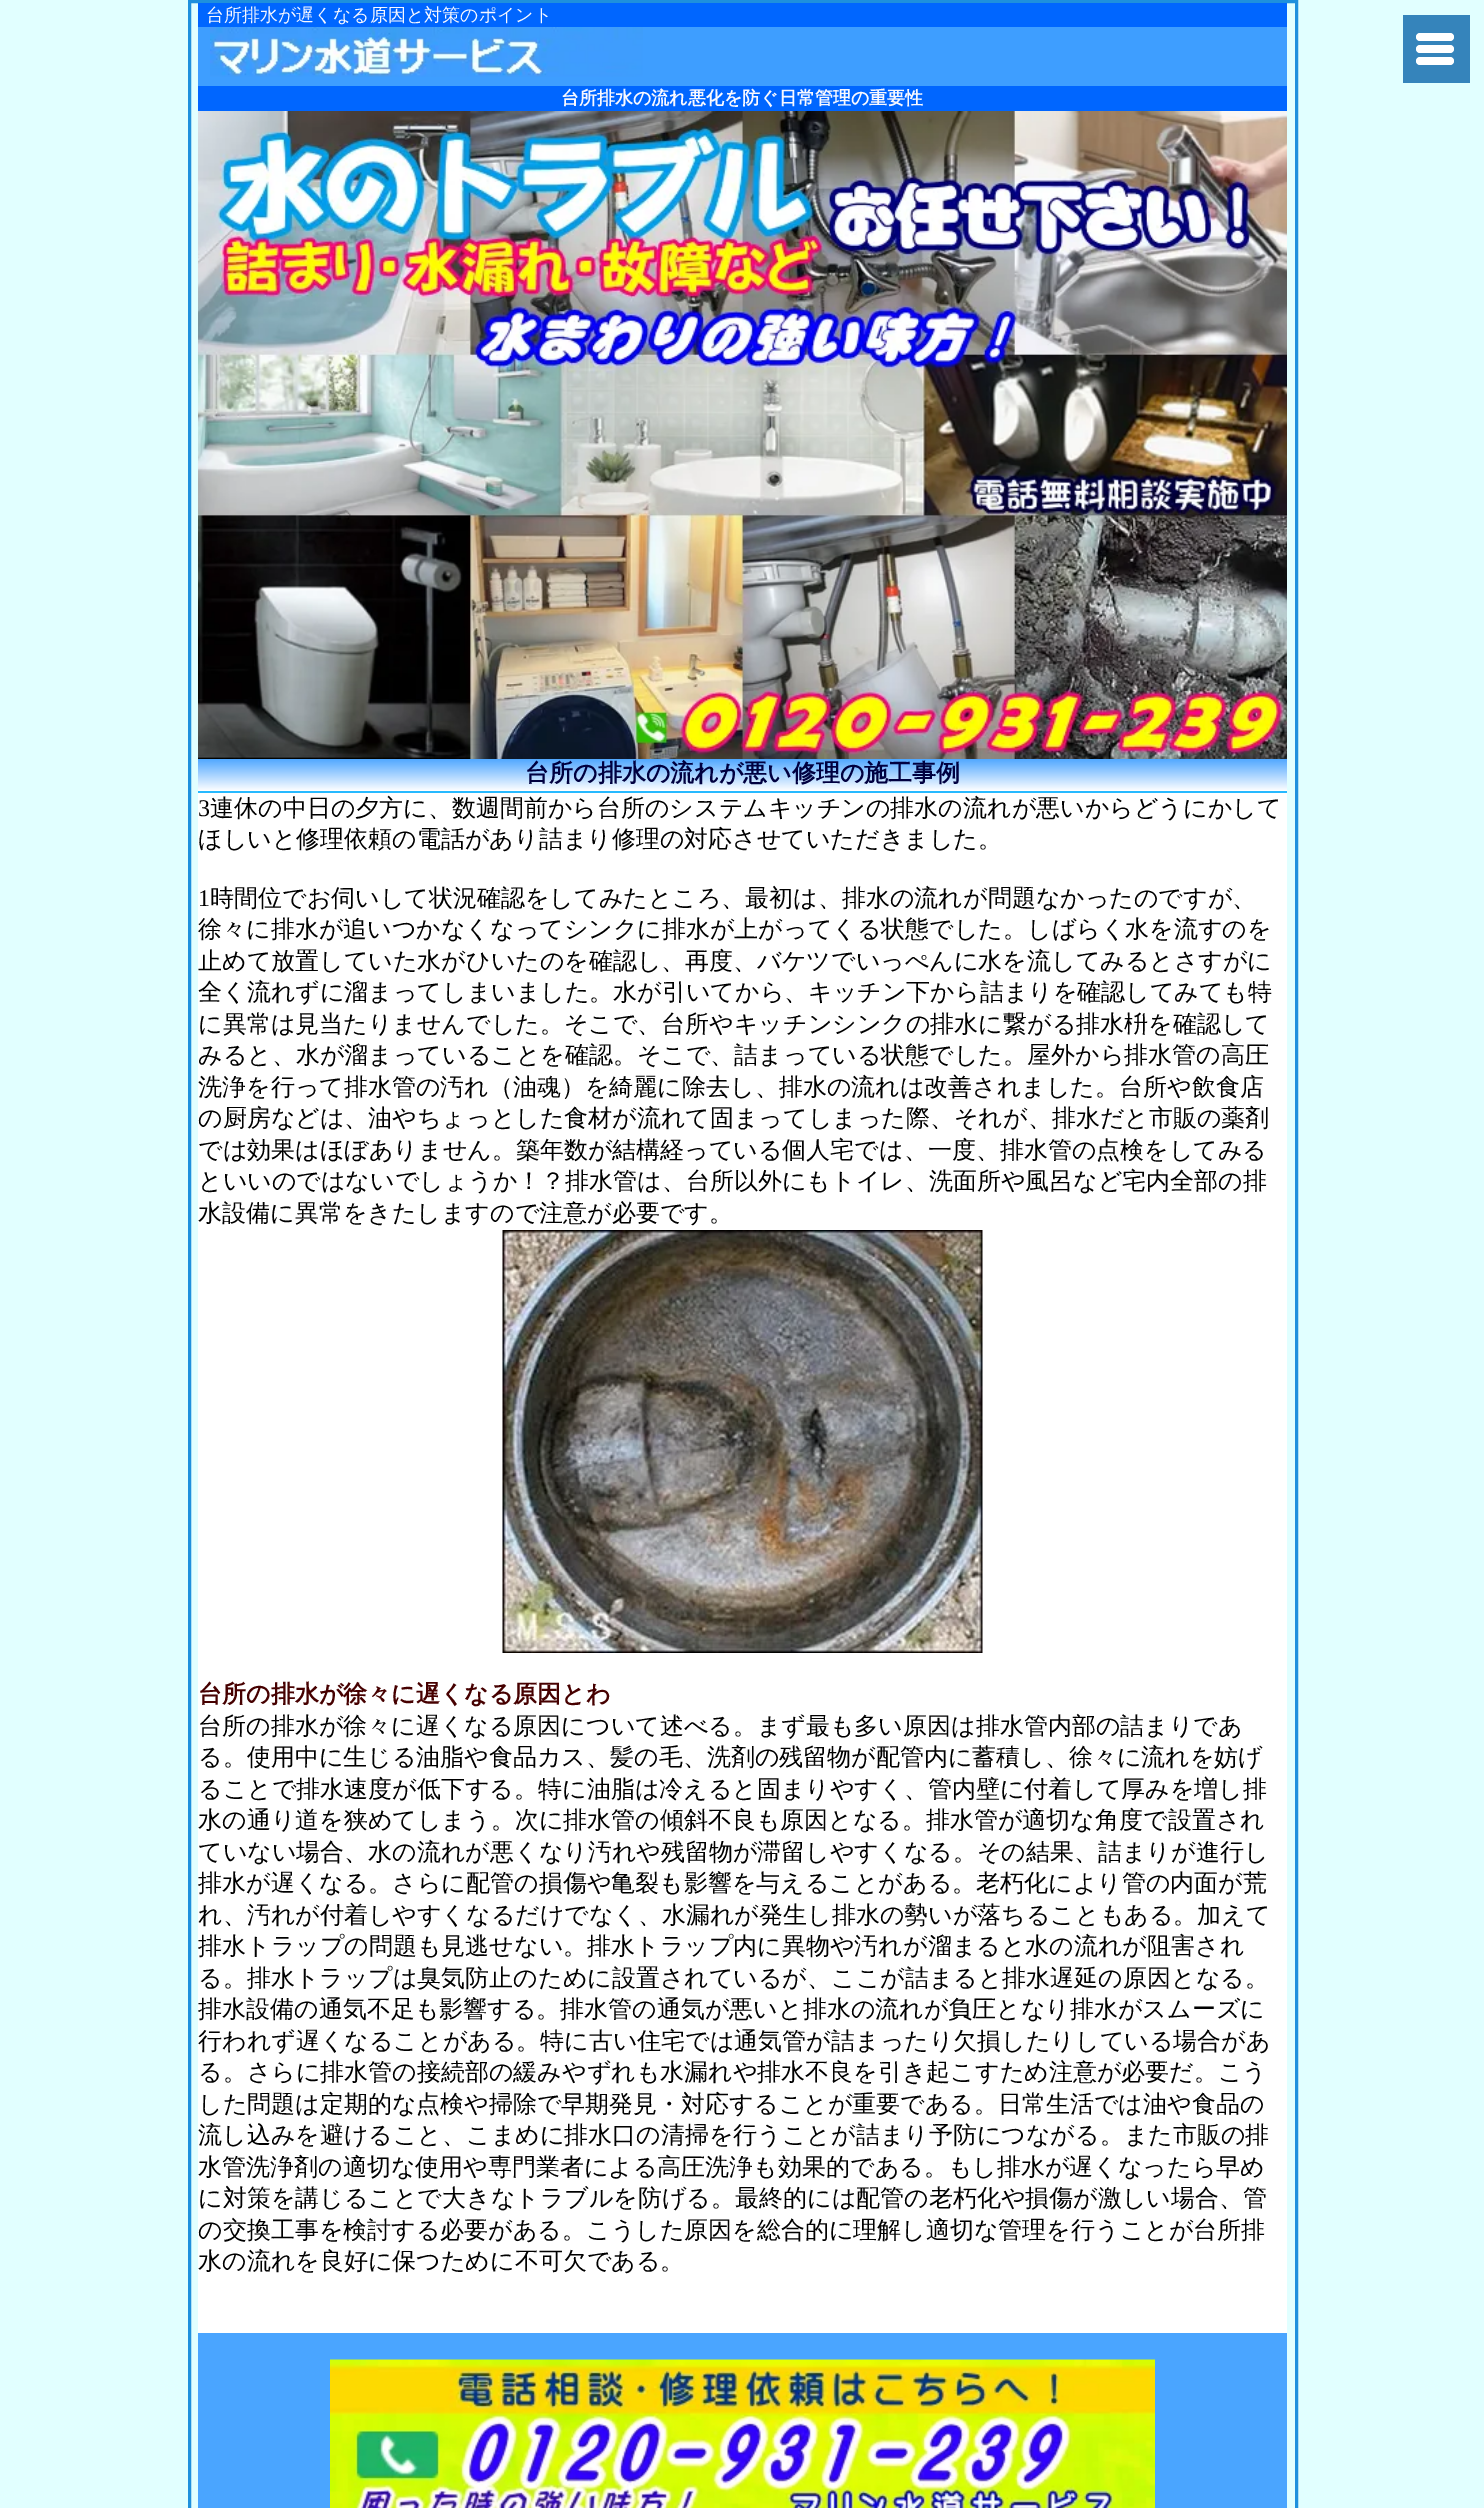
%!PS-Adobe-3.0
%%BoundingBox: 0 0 1484 2508
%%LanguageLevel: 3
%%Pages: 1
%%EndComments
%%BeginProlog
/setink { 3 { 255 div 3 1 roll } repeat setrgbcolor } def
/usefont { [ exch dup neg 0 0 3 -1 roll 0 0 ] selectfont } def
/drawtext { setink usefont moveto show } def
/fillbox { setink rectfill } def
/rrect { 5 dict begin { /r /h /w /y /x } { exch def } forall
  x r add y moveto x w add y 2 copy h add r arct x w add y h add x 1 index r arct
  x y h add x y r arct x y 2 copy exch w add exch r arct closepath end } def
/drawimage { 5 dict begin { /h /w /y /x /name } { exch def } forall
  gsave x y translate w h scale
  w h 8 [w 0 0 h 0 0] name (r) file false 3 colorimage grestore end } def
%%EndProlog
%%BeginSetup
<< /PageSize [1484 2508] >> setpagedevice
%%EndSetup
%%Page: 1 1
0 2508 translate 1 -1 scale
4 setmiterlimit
0 0 1484 2508 225 255 255 fillbox
30 144 221 setink
3 setlinewidth
189.5 1.5 1107 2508 rectstroke
198 3 1089 24 0 102 255 fillbox
(台所排水が遅くなる原因と対策のポイント) 206 21 /WenQuanYiZenHei-Medium 18 248 248 255 drawtext
198 27 1089 59 62 158 255 fillbox
(assets/img1.rgb) 210 27 433 50 drawimage
1403 15 67 68 53 132 187 fillbox
255 255 255 setink
1416 33 38 8 4 rrect fill
1416 45 38 8 4 rrect fill
1416 57 38 8 4 rrect fill
198 86 1089 25 0 102 255 fillbox
(台所排水の流れ悪化を防ぐ日常管理の重要性) 561 104 /WenQuanYiZenHei-Bold 18 248 248 255 drawtext
(assets/img2.rgb) 198 111 1089 648 drawimage
198 793 1089 1540 255 255 255 fillbox
gsave 198 759 moveto 1287 759 lineto 1287 791 lineto 198 791 lineto closepath clip newpath
<< /ShadingType 2 /ColorSpace /DeviceRGB /Coords [743 759 743 791] /Extend [true true] /Function << /FunctionType 2 /Domain [0 1] /C0 [0.318 0.659 1] /C1 [1 1 1] /N 1 >> >> shfill grestore
198 791 1089 2 38 185 255 fillbox
(台所の排水の流れが悪い修理の施工事例) 525 781 /WenQuanYiZenHei-Bold 24 0 0 64 drawtext
(3) 198 816 /LiberationSerif-Regular 24 0 0 0 drawtext
(連休の中日の夕方に、数週間前から台所のシステムキッチンの排水の流れが悪いからどうにかして) 210 816 /WenQuanYiZenHei-Medium 24 0 0 0 drawtext
(ほしいと修理依頼の電話があり詰まり修理の対応させていただきました。) 198 847 /WenQuanYiZenHei-Medium 24 0 0 0 drawtext
(1) 198 906 /LiberationSerif-Regular 24 0 0 0 drawtext
(時間位でお伺いして状況確認をしてみたところ、最初は、排水の流れが問題なかったのですが、) 210 906 /WenQuanYiZenHei-Medium 24 0 0 0 drawtext
(徐々に排水が追いつかなくなってシンクに排水が上がってくる状態でした。しばらく水を流すのを) 198 937 /WenQuanYiZenHei-Medium 24 0 0 0 drawtext
(止めて放置していた水がひいたのを確認し、再度、バケツでいっぺんに水を流してみるとさすがに) 198 969 /WenQuanYiZenHei-Medium 24 0 0 0 drawtext
(全く流れずに溜まってしまいました。水が引いてから、キッチン下から詰まりを確認してみても特) 198 1000 /WenQuanYiZenHei-Medium 24 0 0 0 drawtext
(に異常は見当たりませんでした。そこで、台所やキッチンシンクの排水に繋がる排水枡を確認して) 198 1032 /WenQuanYiZenHei-Medium 24 0 0 0 drawtext
(みると、水が溜まっていることを確認。そこで、詰まっている状態でした。屋外から排水管の高圧) 198 1063 /WenQuanYiZenHei-Medium 24 0 0 0 drawtext
(洗浄を行って排水管の汚れ（油魂）を綺麗に除去し、排水の流れは改善されました。台所や飲食店) 198 1095 /WenQuanYiZenHei-Medium 24 0 0 0 drawtext
(の厨房などは、油やちょっとした食材が流れて固まってしまった際、それが、排水だと市販の薬剤) 198 1126 /WenQuanYiZenHei-Medium 24 0 0 0 drawtext
(では効果はほぼありません。築年数が結構経っている個人宅では、一度、排水管の点検をしてみる) 198 1158 /WenQuanYiZenHei-Medium 24 0 0 0 drawtext
(といいのではないでしょうか！？排水管は、台所以外にもトイレ、洗面所や風呂など宅内全部の排) 198 1189 /WenQuanYiZenHei-Medium 24 0 0 0 drawtext
(水設備に異常をきたしますので注意が必要です。) 198 1221 /WenQuanYiZenHei-Medium 24 0 0 0 drawtext
(assets/img3.rgb) 502 1230 481 423 drawimage
(台所の排水が徐々に遅くなる原因とわ) 198 1702 /WenQuanYiZenHei-Bold 24 70 0 0 drawtext
(台所の排水が徐々に遅くなる原因について述べる。まず最も多い原因は排水管内部の詰まりであ) 198 1734 /WenQuanYiZenHei-Medium 24 0 0 0 drawtext
(る。使用中に生じる油脂や食品カス、髪の毛、洗剤の残留物が配管内に蓄積し、徐々に流れを妨げ) 198 1765 /WenQuanYiZenHei-Medium 24 0 0 0 drawtext
(ることで排水速度が低下する。特に油脂は冷えると固まりやすく、管内壁に付着して厚みを増し排) 198 1797 /WenQuanYiZenHei-Medium 24 0 0 0 drawtext
(水の通り道を狭めてしまう。次に排水管の傾斜不良も原因となる。排水管が適切な角度で設置され) 198 1828 /WenQuanYiZenHei-Medium 24 0 0 0 drawtext
(ていない場合、水の流れが悪くなり汚れや残留物が滞留しやすくなる。その結果、詰まりが進行し) 198 1860 /WenQuanYiZenHei-Medium 24 0 0 0 drawtext
(排水が遅くなる。さらに配管の損傷や亀裂も影響を与えることがある。老朽化により管の内面が荒) 198 1891 /WenQuanYiZenHei-Medium 24 0 0 0 drawtext
(れ、汚れが付着しやすくなるだけでなく、水漏れが発生し排水の勢いが落ちることもある。加えて) 198 1923 /WenQuanYiZenHei-Medium 24 0 0 0 drawtext
(排水トラップの問題も見逃せない。排水トラップ内に異物や汚れが溜まると水の流れが阻害され) 198 1954 /WenQuanYiZenHei-Medium 24 0 0 0 drawtext
(る。排水トラップは臭気防止のために設置されているが、ここが詰まると排水遅延の原因となる。) 198 1986 /WenQuanYiZenHei-Medium 24 0 0 0 drawtext
(排水設備の通気不足も影響する。排水管の通気が悪いと排水の流れが負圧となり排水がスムーズに) 198 2017 /WenQuanYiZenHei-Medium 24 0 0 0 drawtext
(行われず遅くなることがある。特に古い住宅では通気管が詰まったり欠損したりしている場合があ) 198 2049 /WenQuanYiZenHei-Medium 24 0 0 0 drawtext
(る。さらに排水管の接続部の緩みやずれも水漏れや排水不良を引き起こすため注意が必要だ。こう) 198 2080 /WenQuanYiZenHei-Medium 24 0 0 0 drawtext
(した問題は定期的な点検や掃除で早期発見・対応することが重要である。日常生活では油や食品の) 198 2112 /WenQuanYiZenHei-Medium 24 0 0 0 drawtext
(流し込みを避けること、こまめに排水口の清掃を行うことが詰まり予防につながる。また市販の排) 198 2143 /WenQuanYiZenHei-Medium 24 0 0 0 drawtext
(水管洗浄剤の適切な使用や専門業者による高圧洗浄も効果的である。もし排水が遅くなったら早め) 198 2175 /WenQuanYiZenHei-Medium 24 0 0 0 drawtext
(に対策を講じることで大きなトラブルを防げる。最終的には配管の老朽化や損傷が激しい場合、管) 198 2206 /WenQuanYiZenHei-Medium 24 0 0 0 drawtext
(の交換工事を検討する必要がある。こうした原因を総合的に理解し適切な管理を行うことが台所排) 198 2238 /WenQuanYiZenHei-Medium 24 0 0 0 drawtext
(水の流れを良好に保つために不可欠である。) 198 2269 /WenQuanYiZenHei-Medium 24 0 0 0 drawtext
198 2333 1089 175 74 165 255 fillbox
(assets/img4.rgb) 330 2359 825 149 drawimage
showpage
%%EOF
